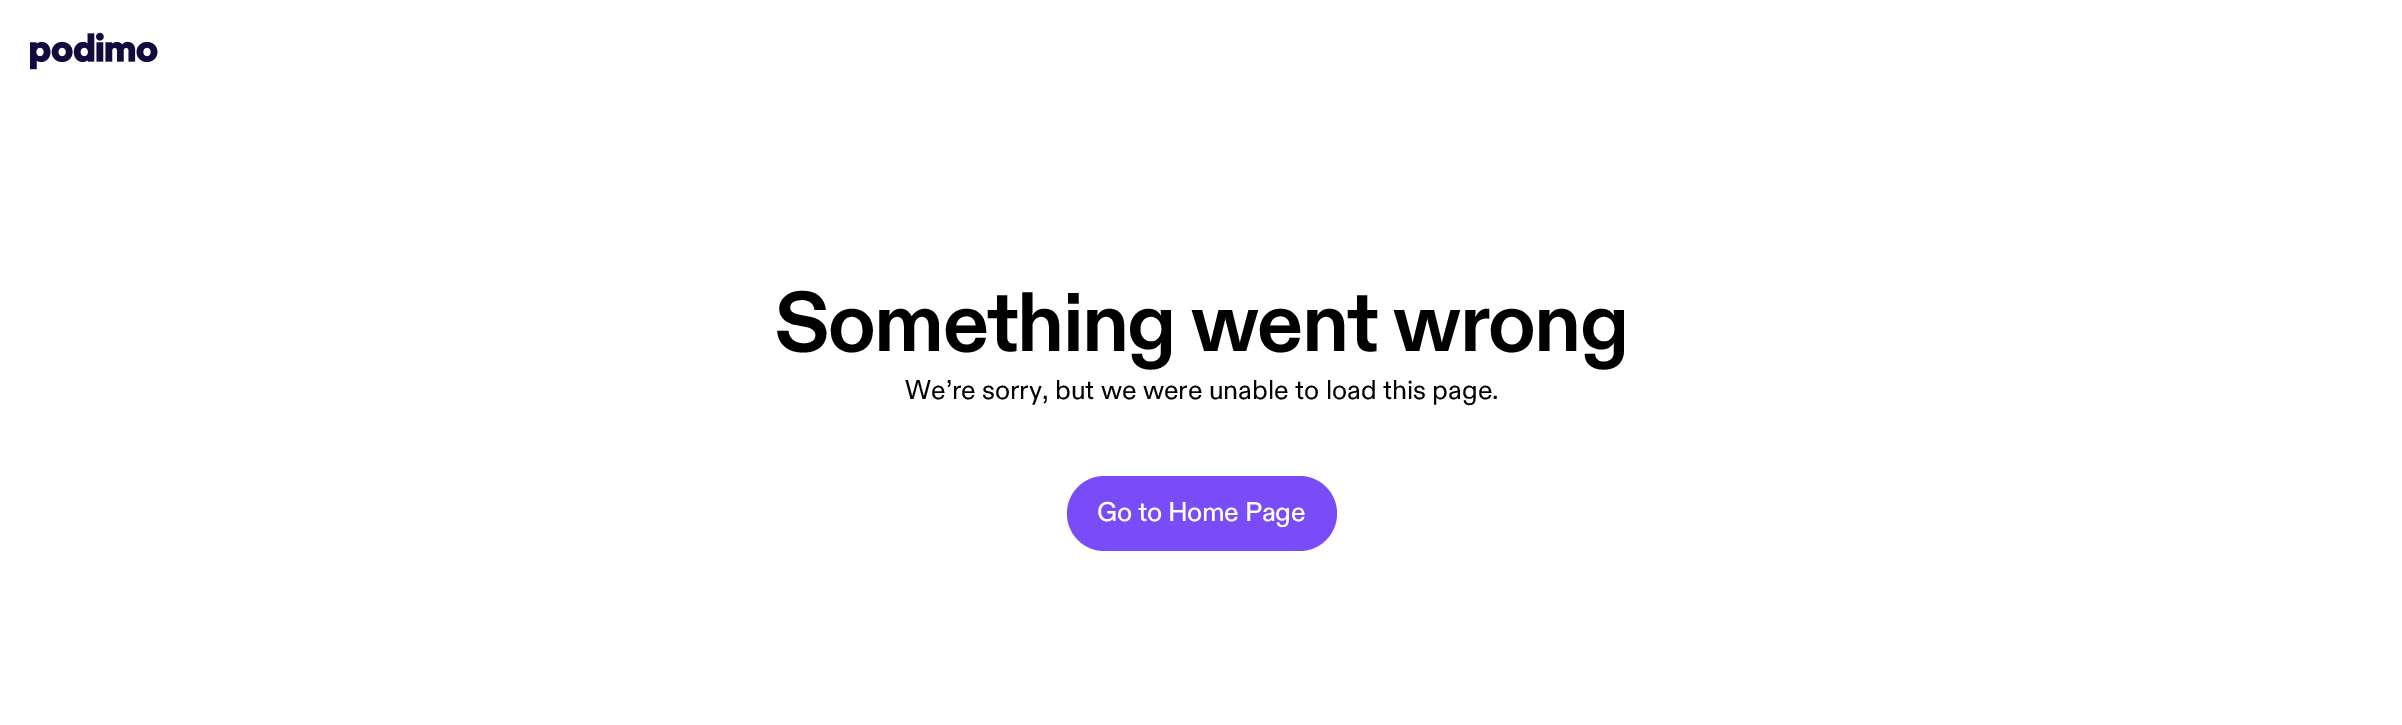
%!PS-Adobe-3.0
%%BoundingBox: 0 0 2402 725
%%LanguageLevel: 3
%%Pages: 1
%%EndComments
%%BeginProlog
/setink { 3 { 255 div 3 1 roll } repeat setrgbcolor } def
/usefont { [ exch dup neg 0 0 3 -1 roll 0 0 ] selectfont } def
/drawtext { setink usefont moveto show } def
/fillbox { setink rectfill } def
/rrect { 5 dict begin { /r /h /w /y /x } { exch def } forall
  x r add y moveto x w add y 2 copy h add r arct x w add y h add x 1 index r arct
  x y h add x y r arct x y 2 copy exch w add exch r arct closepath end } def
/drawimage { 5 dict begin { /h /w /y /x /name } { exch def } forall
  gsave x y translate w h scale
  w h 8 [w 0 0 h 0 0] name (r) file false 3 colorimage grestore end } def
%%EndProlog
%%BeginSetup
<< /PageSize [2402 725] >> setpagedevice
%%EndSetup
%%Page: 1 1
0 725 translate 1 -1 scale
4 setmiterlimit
0 0 2402 725 255 255 255 fillbox
(assets/img1.rgb) 30 32 128 38 drawimage
/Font-Bold 84 usefont
0 0 0 setink
775 351 moveto -1.7 0 (Something went wrong) ashow
(We’re sorry, but we were unable to load this page.) 905 399 /Font-Regular 27 0 0 0 drawtext
121 76 248 setink
1067 476 270 75 37.5 rrect fill
/Font-Medium 27 usefont
255 255 255 setink
1097 521 moveto -0.25 0 (Go to Home Page) ashow
showpage
%%EOF
